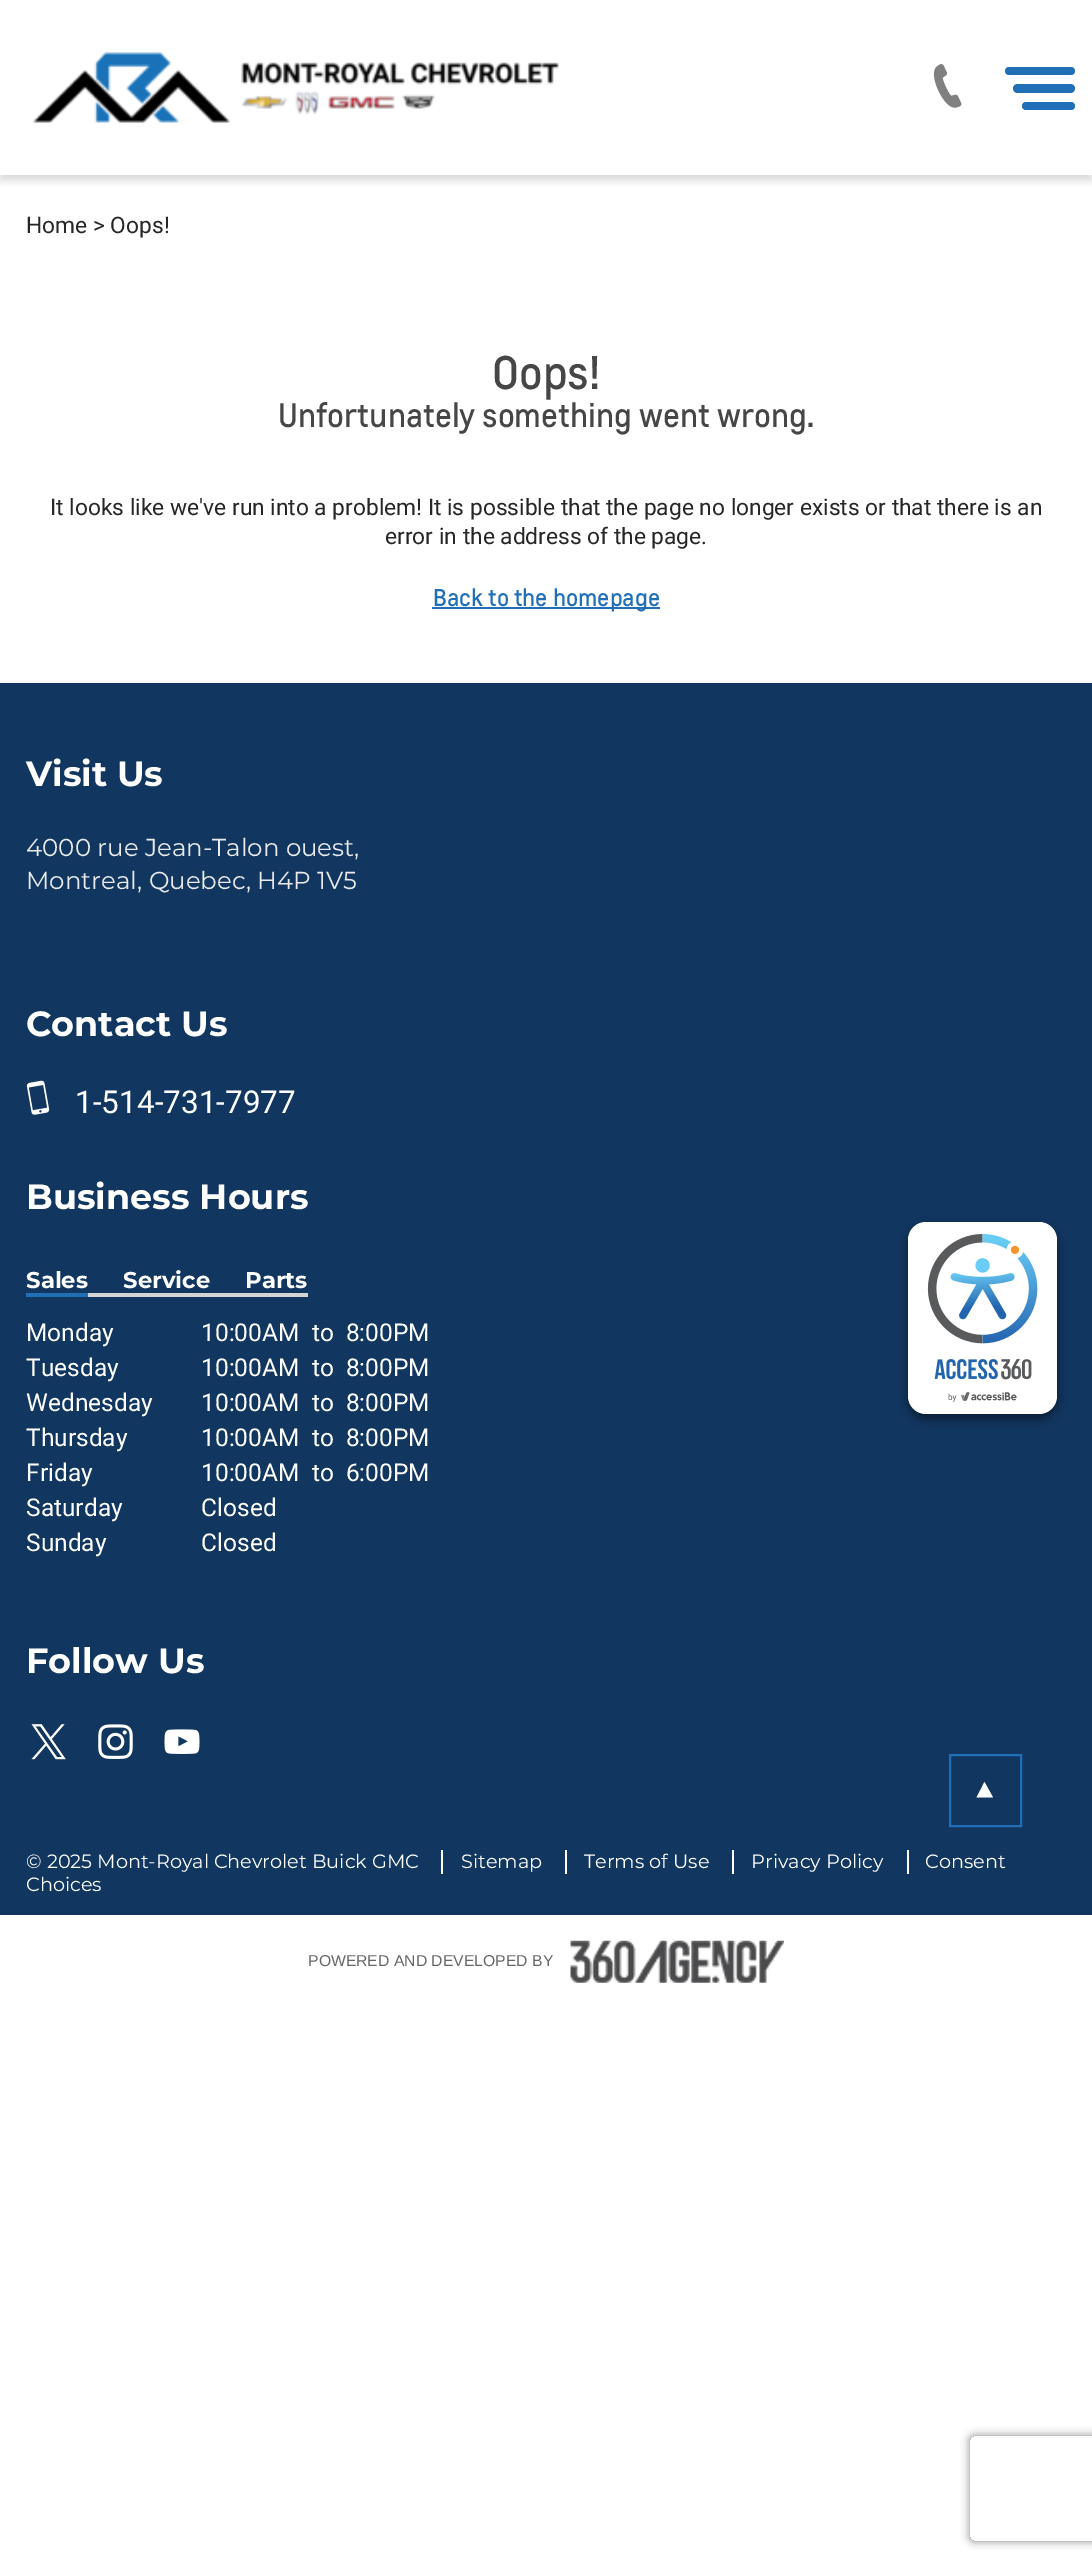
%!PS-Adobe-3.0
%%BoundingBox: 0 0 1092 2565
%%LanguageLevel: 3
%%Pages: 1
%%EndComments
%%BeginProlog
/setink { 3 { 255 div 3 1 roll } repeat setrgbcolor } def
/usefont { [ exch dup neg 0 0 3 -1 roll 0 0 ] selectfont } def
/drawtext { setink usefont moveto show } def
/fillbox { setink rectfill } def
/setalpha { dup .setfillconstantalpha .setstrokeconstantalpha } def
/rrect { 5 dict begin { /r /h /w /y /x } { exch def } forall
  x r add y moveto x w add y 2 copy h add r arct x w add y h add x 1 index r arct
  x y h add x y r arct x y 2 copy exch w add exch r arct closepath end } def
/softshadow { 12 dict begin { /a /b /q /h /w /y /x } { exch def } forall gsave /was 0 def
  9 -2 -9 { dup b mul 4 div /e exch def 1 sub .425 mul 2.718 exch exp 1 add a .99 .min exch div /now exch def
    1 1 now sub 1 was sub div sub setalpha /was now def
    w h .min e 2 mul add 0 gt { x e sub y e sub w e 2 mul add h e 2 mul add
      q e add b .6 mul add w h .min 2 div e add .min 0 .max rrect fill } if } for grestore end } def
/drawimage { 5 dict begin { /h /w /y /x /name } { exch def } forall
  gsave x y translate w h scale
  w h 8 [w 0 0 h 0 0] name (r) file false 3 colorimage grestore end } def
%%EndProlog
%%BeginSetup
<< /PageSize [1092 2565] /PageUsesTransparency true >> setpagedevice
%%EndSetup
%%Page: 1 1
0 .pushpdf14devicefilter
0 2565 translate 1 -1 scale
4 setmiterlimit
0 0 1092 2565 255 255 255 fillbox
gsave
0 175 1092 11 rectclip
0 0 0 setink
0 5 1092 175 0 5 0.16 softshadow
grestore
(assets/img1.rgb) 33 52 526 71 drawimage
(assets/img2.rgb) 933 64 29 44 drawimage
33 111 183 setink
1005 67 70 8 4 rrect fill
1013 84 62 9 4.5 rrect fill
1022 102 53 8 4 rrect fill
(Home > Oops!) 26 233 /Roboto-Regular 22.75 38 38 38 drawtext
(Oops!) 492 389 /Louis-Regular 44 70 70 70 drawtext
(Unfortunately something went wrong.) 278 427 /Louis-Regular 31.5 70 70 70 drawtext
(It looks like we've run into a problem! It is possible that the page no longer exists or that there is an) 50 515 /Roboto-Regular 22.75 38 38 38 drawtext
(error in the address of the page.) 385 544 /Roboto-Regular 22.75 38 38 38 drawtext
432 607 228 2 33 111 183 fillbox
(Back to the homepage) 433 606 /Louis-Regular 22.75 33 111 183 drawtext
0 683 1092 1232 17 54 95 fillbox
(Visit Us) 26 786 /Montserrat-Bold 35 255 255 255 drawtext
(4000 rue Jean-Talon ouest,) 26 856 /Montserrat-Regular 24.5 235 235 235 drawtext
(Montreal, Quebec, H4P 1V5) 26 889 /Montserrat-Regular 24.5 235 235 235 drawtext
(Contact Us) 26 1036 /Montserrat-Bold 35 255 255 255 drawtext
(assets/img3.rgb) 26 1080 24 35 drawimage
(1-514-731-7977) 75 1113 /Roboto-Regular 31.5 255 255 255 drawtext
(Business Hours) 26 1209 /Montserrat-Bold 35 255 255 255 drawtext
88 1293 220 4 212 212 212 fillbox
(Sales) 26 1288 /Montserrat-Bold 22.75 255 255 255 drawtext
26 1293 62 4 33 111 183 fillbox
(Service) 123 1288 /Montserrat-Bold 22.75 255 255 255 drawtext
(Parts) 245 1288 /Montserrat-Bold 22.75 255 255 255 drawtext
(Monday) 26 1341 /Roboto-Regular 24.5 255 255 255 drawtext
(10:00AM  to  8:00PM) 201 1341 /Roboto-Regular 24.5 255 255 255 drawtext
(Tuesday) 26 1376 /Roboto-Regular 24.5 255 255 255 drawtext
(10:00AM  to  8:00PM) 201 1376 /Roboto-Regular 24.5 255 255 255 drawtext
(Wednesday) 26 1411 /Roboto-Regular 24.5 255 255 255 drawtext
(10:00AM  to  8:00PM) 201 1411 /Roboto-Regular 24.5 255 255 255 drawtext
(Thursday) 26 1446 /Roboto-Regular 24.5 255 255 255 drawtext
(10:00AM  to  8:00PM) 201 1446 /Roboto-Regular 24.5 255 255 255 drawtext
(Friday) 26 1481 /Roboto-Regular 24.5 255 255 255 drawtext
(10:00AM  to  6:00PM) 201 1481 /Roboto-Regular 24.5 255 255 255 drawtext
(Saturday) 26 1516 /Roboto-Regular 24.5 255 255 255 drawtext
(Closed) 201 1516 /Roboto-Regular 24.5 255 255 255 drawtext
(Sunday) 26 1551 /Roboto-Regular 24.5 255 255 255 drawtext
(Closed) 201 1551 /Roboto-Regular 24.5 255 255 255 drawtext
(Follow Us) 26 1673 /Montserrat-Bold 35 255 255 255 drawtext
(assets/img4.rgb) 31 1724 35 36 drawimage
(assets/img5.rgb) 98 1724 35 35 drawimage
(assets/img6.rgb) 164 1729 36 25 drawimage
33 111 183 setink
2 setlinewidth
950 1755 71 71 rectstroke
255 255 255 setink
993 1797.5 moveto 984.5 1782 lineto 976.5 1797.5 lineto closepath fill
(© 2025 Mont-Royal Chevrolet Buick GMC) 26 1868 /Montserrat-Regular 19.25 255 255 255 drawtext
441 1850 2 24 255 255 255 fillbox
(Sitemap) 461 1868 /Montserrat-Regular 19.25 255 255 255 drawtext
565 1850 2 24 255 255 255 fillbox
(Terms of Use) 584 1868 /Montserrat-Regular 19.25 255 255 255 drawtext
732 1850 2 24 255 255 255 fillbox
(Privacy Policy) 751 1868 /Montserrat-Regular 19.25 255 255 255 drawtext
907 1850 2 24 255 255 255 fillbox
(Consent) 925 1868 /Montserrat-Regular 19.25 255 255 255 drawtext
(Choices) 26 1891 /Montserrat-Regular 19.25 255 255 255 drawtext
0 0 0 setink
908 1227 149 192 18 5 0.5 softshadow
255 255 255 setink
908 1222 149 192 18 rrect fill
(assets/img7.rgb) 927 1234 111 168 drawimage
(POWERED AND DEVELOPED BY) 308 1966 /LiberationSans-Regular 15.75 102 102 102 drawtext
(assets/img8.rgb) 570 1940 214 43 drawimage
gsave
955 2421 moveto 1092 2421 lineto 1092 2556 lineto 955 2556 lineto closepath 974 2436 moveto 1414 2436 lineto 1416 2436 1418 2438 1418 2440 curveto 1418 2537 lineto 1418 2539 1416 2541 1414 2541 curveto 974 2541 lineto 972 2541 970 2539 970 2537 curveto 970 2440 lineto 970 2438 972 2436 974 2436 curveto closepath eoclip newpath
128 128 128 setink
970 2436 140 105 4 4.5 1 softshadow
grestore
.poppdf14devicefilter showpage
%%EOF
